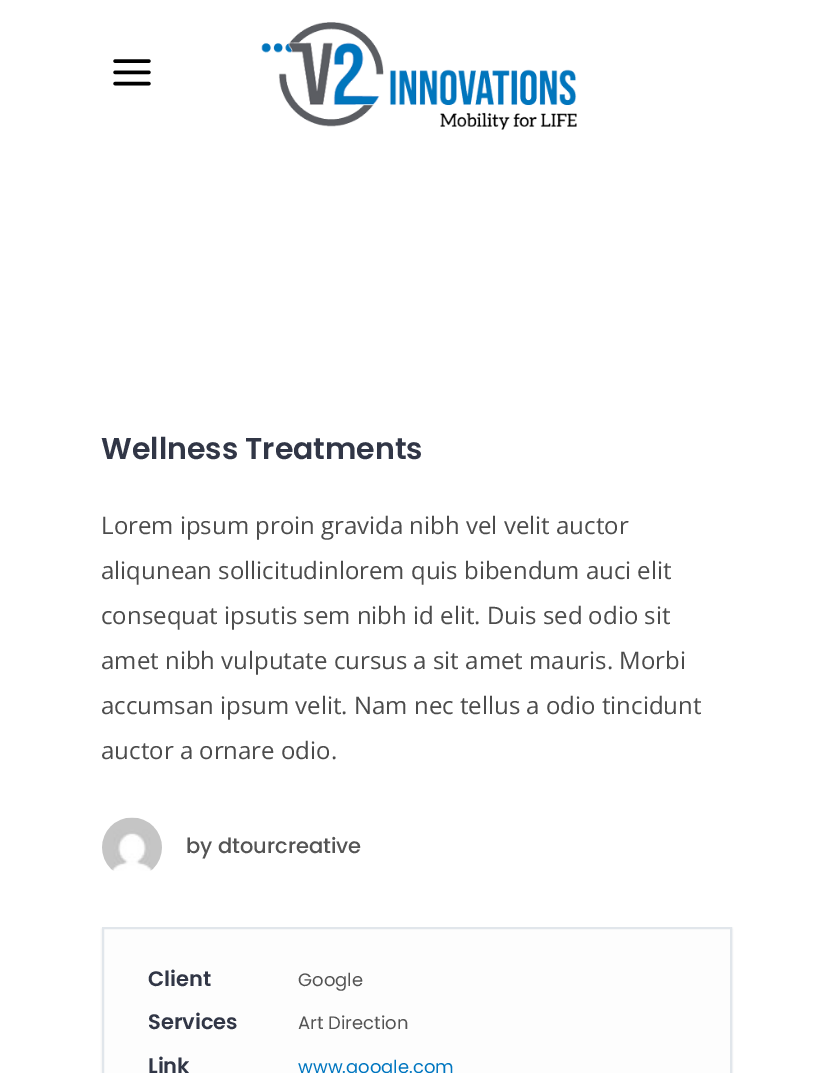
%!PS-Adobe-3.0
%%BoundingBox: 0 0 832 1073
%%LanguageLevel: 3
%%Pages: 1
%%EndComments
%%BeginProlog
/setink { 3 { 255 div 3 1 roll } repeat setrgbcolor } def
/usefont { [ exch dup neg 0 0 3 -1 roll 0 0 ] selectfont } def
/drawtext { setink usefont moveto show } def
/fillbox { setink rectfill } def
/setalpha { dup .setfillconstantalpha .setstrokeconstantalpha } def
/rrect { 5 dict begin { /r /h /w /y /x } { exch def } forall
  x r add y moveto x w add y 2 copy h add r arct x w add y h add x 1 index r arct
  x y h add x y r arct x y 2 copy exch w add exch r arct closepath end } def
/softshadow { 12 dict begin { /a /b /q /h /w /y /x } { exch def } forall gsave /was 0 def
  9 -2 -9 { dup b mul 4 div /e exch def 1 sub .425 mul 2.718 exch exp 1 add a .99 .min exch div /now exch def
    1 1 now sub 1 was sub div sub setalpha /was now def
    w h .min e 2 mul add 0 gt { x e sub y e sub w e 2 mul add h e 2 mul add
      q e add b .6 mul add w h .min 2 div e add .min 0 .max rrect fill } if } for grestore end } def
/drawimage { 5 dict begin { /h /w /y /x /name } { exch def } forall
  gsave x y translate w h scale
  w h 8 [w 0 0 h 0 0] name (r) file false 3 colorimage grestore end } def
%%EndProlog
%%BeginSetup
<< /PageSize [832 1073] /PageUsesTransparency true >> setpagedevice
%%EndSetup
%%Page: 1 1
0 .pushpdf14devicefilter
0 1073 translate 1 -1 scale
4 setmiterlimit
0 0 832 1073 255 255 255 fillbox
(assets/img1.rgb) 113 59 38 27 drawimage
(assets/img2.rgb) 261 22 316 108 drawimage
(Wellness Treatments) 101 459 /Poppins-SemiBold 30 49 54 70 drawtext
(Lorem ipsum proin gravida nibh vel velit auctor) 101 534 /OpenSans-Regular 24 76 76 76 drawtext
(aliqunean sollicitudinlorem quis bibendum auci elit) 101 579 /OpenSans-Regular 24 76 76 76 drawtext
(consequat ipsutis sem nibh id elit. Duis sed odio sit) 101 624 /OpenSans-Regular 24 76 76 76 drawtext
(amet nibh vulputate cursus a sit amet mauris. Morbi) 101 669 /OpenSans-Regular 24 76 76 76 drawtext
(accumsan ipsum velit. Nam nec tellus a odio tincidunt) 101 714 /OpenSans-Regular 24 76 76 76 drawtext
(auctor a ornare odio.) 101 759 /OpenSans-Regular 24 76 76 76 drawtext
(assets/img3.rgb) 102 817 60 54 drawimage
(by dtourcreative) 186 853 /Poppins-Medium 21 84 84 84 drawtext
31 35 37 setink
102 929 630 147 0 1 0.1 softshadow
253 253 253 setink
103 928 moveto 731 928 lineto 731 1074 lineto 103 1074 lineto closepath gsave fill grestore
225 230 235 setink
2 setlinewidth
stroke
(Client) 148 986 /Poppins-SemiBold 21 49 54 70 drawtext
(Google) 298 986 /Poppins-Regular 18 84 84 84 drawtext
(Services) 148 1029 /Poppins-SemiBold 21 49 54 70 drawtext
(Art Direction) 298 1029 /Poppins-Regular 18 84 84 84 drawtext
(Link) 148 1073 /Poppins-SemiBold 21 49 54 70 drawtext
(www.google.com) 298 1073 /Poppins-Regular 18 0 118 192 drawtext
.poppdf14devicefilter showpage
%%EOF
